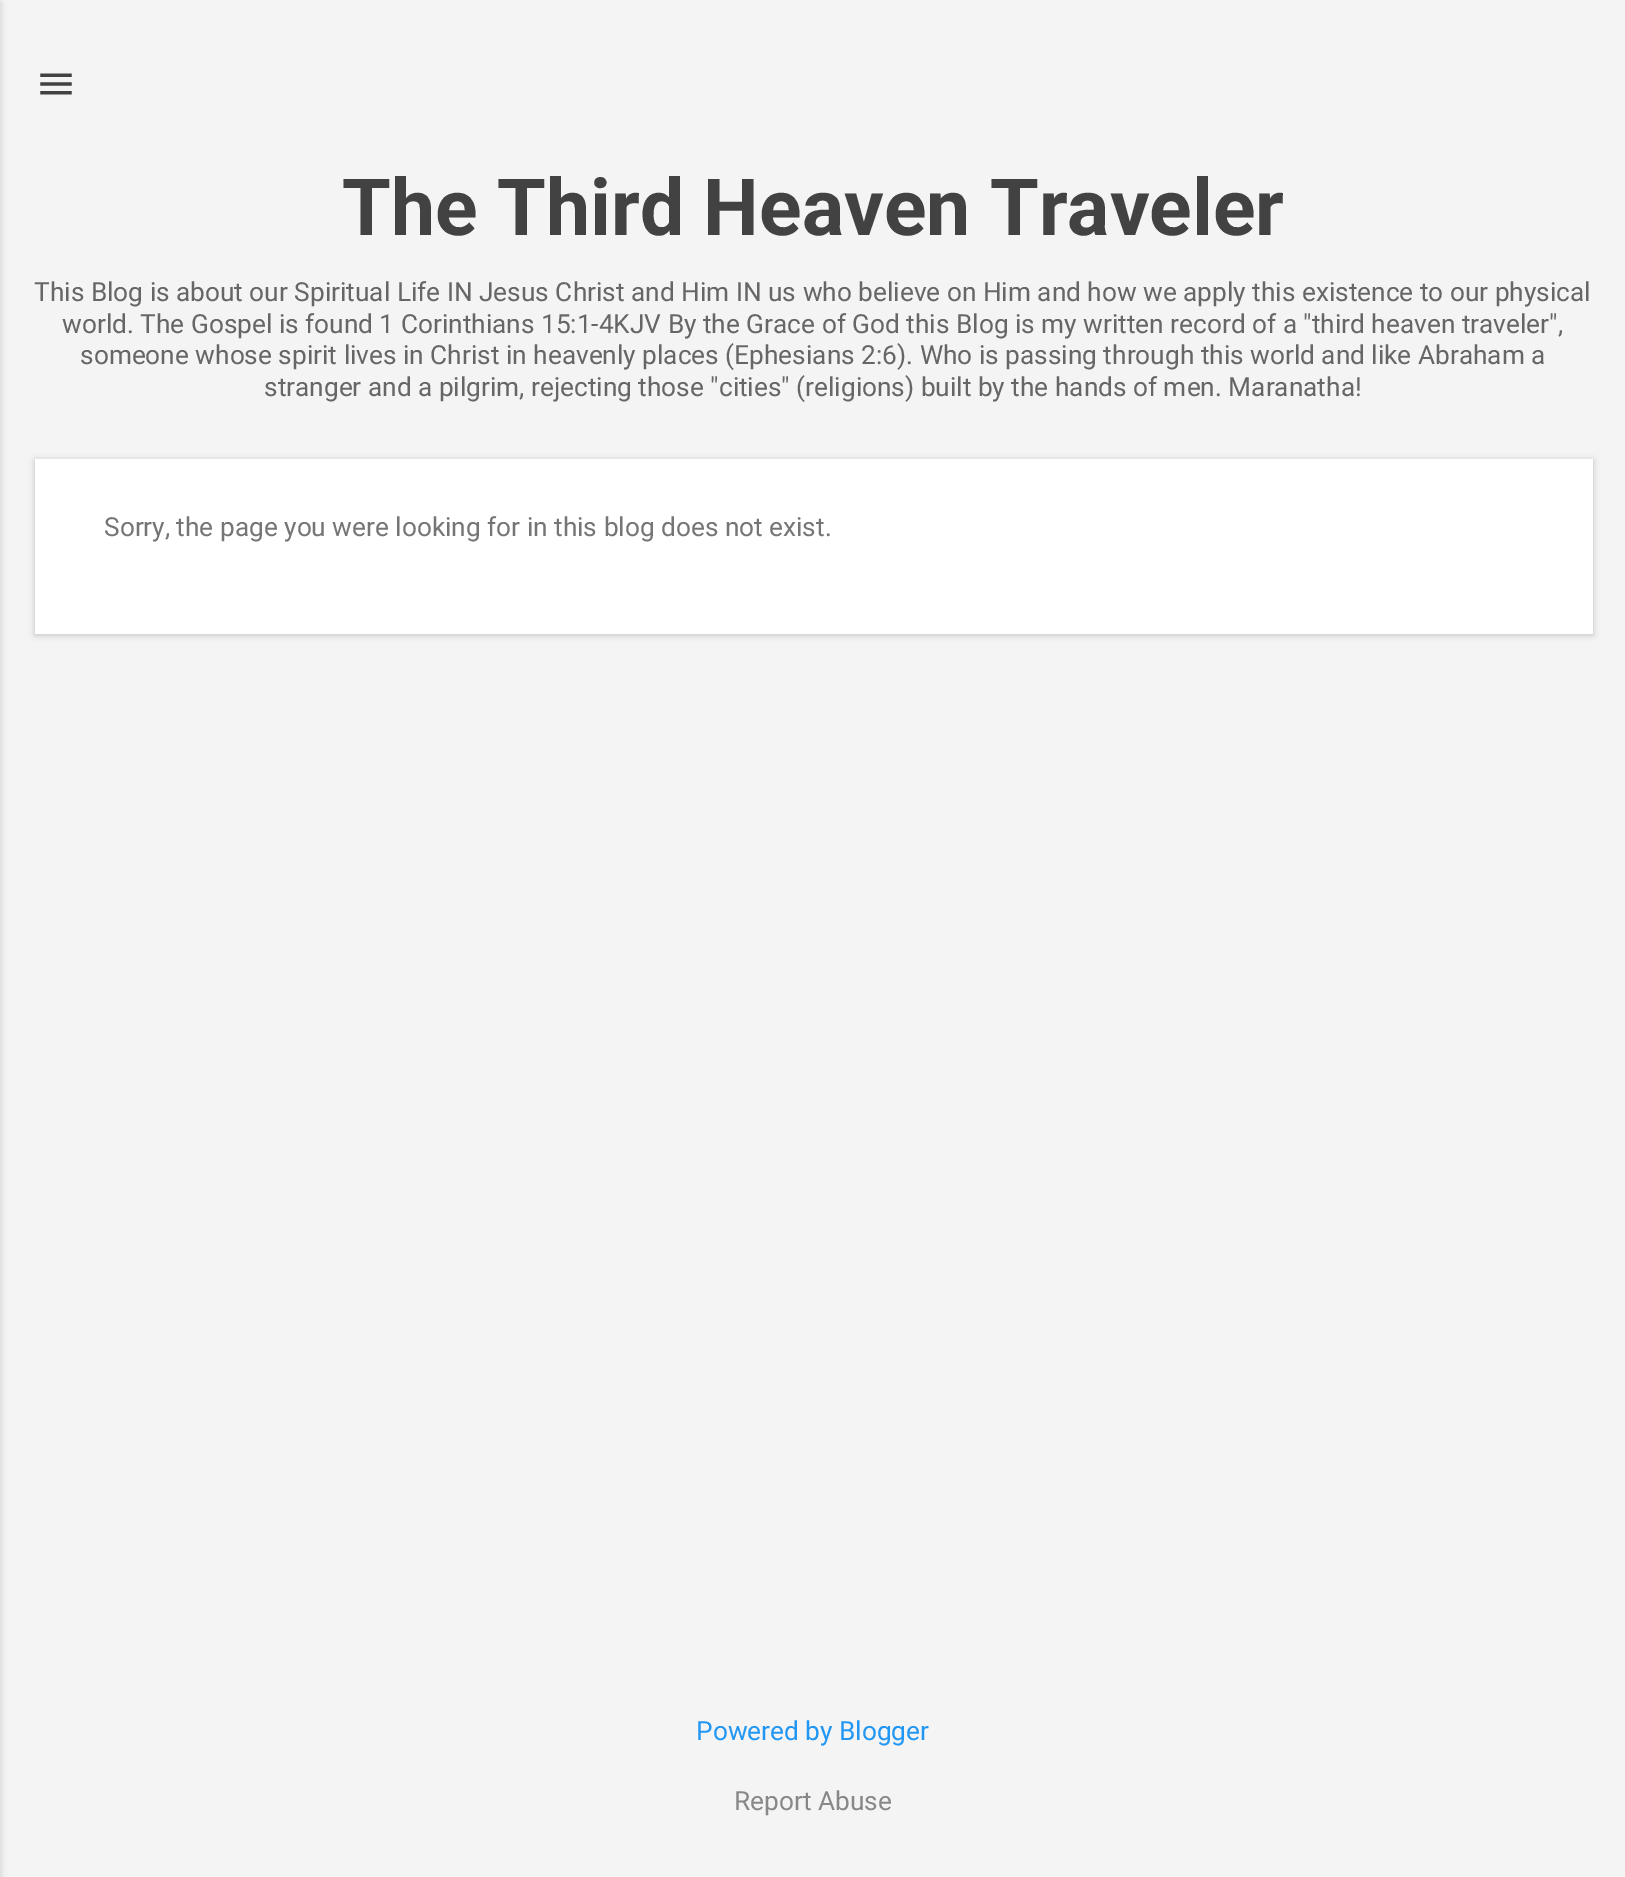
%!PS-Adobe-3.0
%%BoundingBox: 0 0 1625 1877
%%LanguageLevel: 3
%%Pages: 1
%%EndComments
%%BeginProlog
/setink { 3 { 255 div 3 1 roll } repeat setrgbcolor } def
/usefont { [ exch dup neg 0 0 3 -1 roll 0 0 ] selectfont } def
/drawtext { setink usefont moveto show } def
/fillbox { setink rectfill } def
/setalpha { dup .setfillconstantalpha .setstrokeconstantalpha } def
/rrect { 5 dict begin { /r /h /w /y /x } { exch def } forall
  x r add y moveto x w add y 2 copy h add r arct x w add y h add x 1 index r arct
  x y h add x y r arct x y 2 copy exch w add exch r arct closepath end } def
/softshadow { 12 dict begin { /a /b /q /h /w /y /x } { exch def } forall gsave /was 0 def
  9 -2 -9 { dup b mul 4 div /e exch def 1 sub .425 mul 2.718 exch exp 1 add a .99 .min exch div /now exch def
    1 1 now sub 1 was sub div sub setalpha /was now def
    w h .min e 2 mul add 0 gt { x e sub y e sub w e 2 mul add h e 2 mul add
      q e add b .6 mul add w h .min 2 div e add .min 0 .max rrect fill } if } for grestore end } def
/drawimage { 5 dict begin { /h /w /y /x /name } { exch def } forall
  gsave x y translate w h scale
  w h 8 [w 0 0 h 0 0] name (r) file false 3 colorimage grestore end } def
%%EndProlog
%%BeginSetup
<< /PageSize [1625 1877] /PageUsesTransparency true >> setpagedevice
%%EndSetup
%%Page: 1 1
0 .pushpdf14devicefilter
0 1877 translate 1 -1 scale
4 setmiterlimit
0 0 1625 1877 244 244 244 fillbox
0 0 0 setink
-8 2 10 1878 0 2.5 0.1 softshadow
(assets/img1.rgb) 40 73 32 22 drawimage
(The Third Heaven Traveler) 342 235 /Roboto-Bold 78.75 66 66 66 drawtext
(This Blog is about our Spiritual Life IN Jesus Christ and Him IN us who believe on Him and how we apply this existence to our physical) 34 301 /Roboto-Regular 26.25 102 102 102 drawtext
(world. The Gospel is found 1 Corinthians 15:1-4KJV By the Grace of God this Blog is my written record of a "third heaven traveler",) 62 333 /Roboto-Regular 26.25 102 102 102 drawtext
(someone whose spirit lives in Christ in heavenly places \(Ephesians 2:6\). Who is passing through this world and like Abraham a) 80 364 /Roboto-Regular 26.25 102 102 102 drawtext
(stranger and a pilgrim, rejecting those "cities" \(religions\) built by the hands of men. Maranatha!) 264 396 /Roboto-Regular 26.25 102 102 102 drawtext
60 64 67 setink
35 460 1558 175 0 3.5 0.3 softshadow
35 459 1558 175 255 255 255 fillbox
(Sorry, the page you were looking for in this blog does not exist.) 104 536 /Roboto-Regular 26.25 117 117 117 drawtext
(Powered by Blogger) 696 1740 /Roboto-Regular 26.25 33 150 243 drawtext
(Report Abuse) 734 1810 /Roboto-Regular 26.25 136 136 136 drawtext
.poppdf14devicefilter showpage
%%EOF
